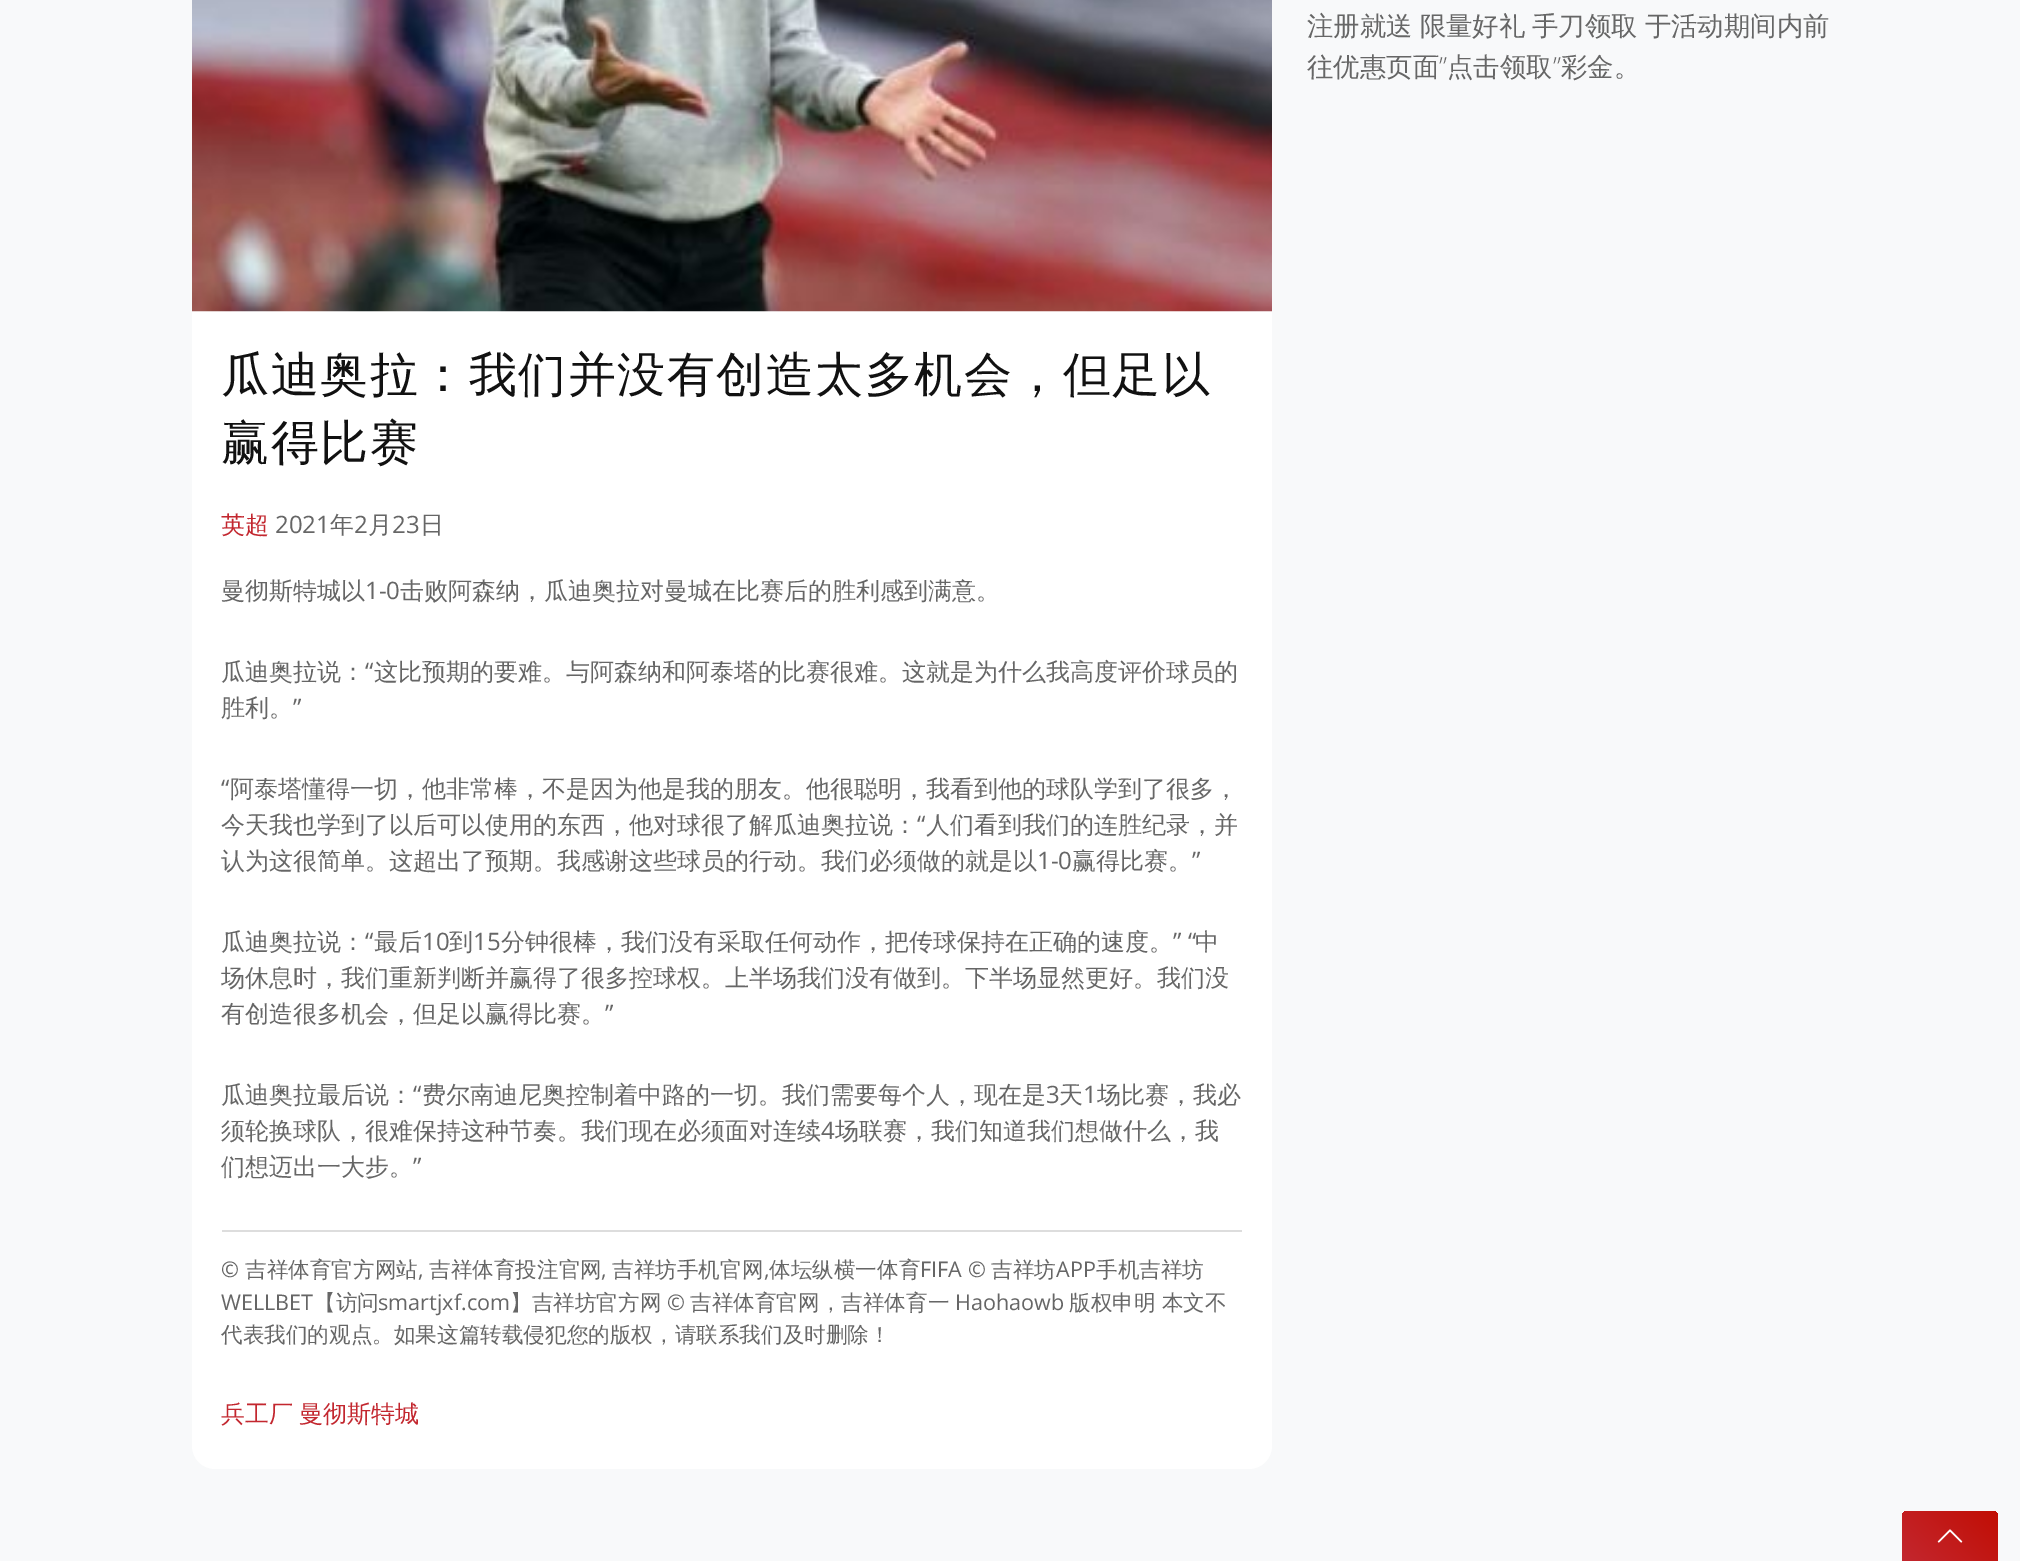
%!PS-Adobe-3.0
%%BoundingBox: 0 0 2020 1561
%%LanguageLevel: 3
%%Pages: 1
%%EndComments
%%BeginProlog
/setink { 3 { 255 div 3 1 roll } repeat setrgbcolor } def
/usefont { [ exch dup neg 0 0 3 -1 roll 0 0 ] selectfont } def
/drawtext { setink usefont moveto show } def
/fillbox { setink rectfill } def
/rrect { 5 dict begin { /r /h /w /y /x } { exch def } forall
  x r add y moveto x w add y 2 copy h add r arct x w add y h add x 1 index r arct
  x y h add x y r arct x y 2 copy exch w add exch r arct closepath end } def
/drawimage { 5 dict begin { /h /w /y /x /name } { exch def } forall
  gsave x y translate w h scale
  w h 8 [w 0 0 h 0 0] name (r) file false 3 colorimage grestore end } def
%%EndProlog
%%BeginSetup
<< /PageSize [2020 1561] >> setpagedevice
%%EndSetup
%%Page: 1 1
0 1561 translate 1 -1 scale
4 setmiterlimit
0 0 2020 1561 248 249 250 fillbox
/WenQuanYiZenHei-Medium 26.4 usefont
102 102 102 setink
1307 35 moveto -1 0 32 (注册就送 限量好礼 手刀领取 于活动期间内前) widthshow
(往优惠页面 点击领取) 1307 76 /WenQuanYiZenHei-Medium 26.4 102 102 102 drawtext
(”) 1553 76 /OpenSans-Light 26.4 102 102 102 drawtext
(彩金。) 1561 76 /WenQuanYiZenHei-Medium 26.4 102 102 102 drawtext
(”) 1439 76 /OpenSans-Light 26.4 102 102 102 drawtext
255 255 255 setink
192 -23 1080 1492 23 rrect fill
(assets/img1.rgb) 192 0 1080 312 drawimage
/WenQuanYiZenHei-Medium 48 usefont
17 17 17 setink
221 391 moveto 1.5 0 (瓜迪奥拉：我们并没有创造太多机会，但足以) ashow
221 459 moveto 1.5 0 (赢得比赛) ashow
(英超) 221 533 /WenQuanYiZenHei-Medium 24 195 39 47 drawtext
(2021) 275 533 /OpenSans-Regular 24 102 102 102 drawtext
(年) 330 533 /WenQuanYiZenHei-Medium 24 102 102 102 drawtext
(2) 354 533 /OpenSans-Regular 24 102 102 102 drawtext
(月) 368 533 /WenQuanYiZenHei-Medium 24 102 102 102 drawtext
(23) 392 533 /OpenSans-Regular 24 102 102 102 drawtext
(日) 420 533 /WenQuanYiZenHei-Medium 24 102 102 102 drawtext
(曼彻斯特城以) 221 599 /WenQuanYiZenHei-Medium 24 102 102 102 drawtext
(1-0) 365 599 /OpenSans-Regular 24 102 102 102 drawtext
(击败阿森纳，瓜迪奥拉对曼城在比赛后的胜利感到满意。) 400 599 /WenQuanYiZenHei-Medium 24 102 102 102 drawtext
(瓜迪奥拉说：) 221 680 /WenQuanYiZenHei-Medium 24 102 102 102 drawtext
(“) 365 680 /OpenSans-Regular 24 102 102 102 drawtext
(这比预期的要难。与阿森纳和阿泰塔的比赛很难。这就是为什么我高度评价球员的) 374 680 /WenQuanYiZenHei-Medium 24 102 102 102 drawtext
(胜利。) 221 716 /WenQuanYiZenHei-Medium 24 102 102 102 drawtext
(”) 293 716 /OpenSans-Regular 24 102 102 102 drawtext
(“) 221 797 /OpenSans-Regular 24 102 102 102 drawtext
(阿泰塔懂得一切，他非常棒，不是因为他是我的朋友。他很聪明，我看到他的球队学到了很多，) 230 797 /WenQuanYiZenHei-Medium 24 102 102 102 drawtext
(今天我也学到了以后可以使用的东西，他对球很了解瓜迪奥拉说：) 221 833 /WenQuanYiZenHei-Medium 24 102 102 102 drawtext
(“) 917 833 /OpenSans-Regular 24 102 102 102 drawtext
(人们看到我们的连胜纪录，并) 926 833 /WenQuanYiZenHei-Medium 24 102 102 102 drawtext
(认为这很简单。这超出了预期。我感谢这些球员的行动。我们必须做的就是以) 221 869 /WenQuanYiZenHei-Medium 24 102 102 102 drawtext
(1-0) 1037 869 /OpenSans-Regular 24 102 102 102 drawtext
(赢得比赛。) 1072 869 /WenQuanYiZenHei-Medium 24 102 102 102 drawtext
(”) 1192 869 /OpenSans-Regular 24 102 102 102 drawtext
(瓜迪奥拉说：) 221 950 /WenQuanYiZenHei-Medium 24 102 102 102 drawtext
(“) 365 950 /OpenSans-Regular 24 102 102 102 drawtext
(最后) 374 950 /WenQuanYiZenHei-Medium 24 102 102 102 drawtext
(10) 422 950 /OpenSans-Regular 24 102 102 102 drawtext
(到) 449 950 /WenQuanYiZenHei-Medium 24 102 102 102 drawtext
(15) 473 950 /OpenSans-Regular 24 102 102 102 drawtext
(分钟很棒，我们没有采取任何动作，把传球保持在正确的速度。) 501 950 /WenQuanYiZenHei-Medium 24 102 102 102 drawtext
(” “) 1173 950 /OpenSans-Regular 24 102 102 102 drawtext
(中) 1195 950 /WenQuanYiZenHei-Medium 24 102 102 102 drawtext
(场休息时，我们重新判断并赢得了很多控球权。上半场我们没有做到。下半场显然更好。我们没) 221 986 /WenQuanYiZenHei-Medium 24 102 102 102 drawtext
(有创造很多机会，但足以赢得比赛。) 221 1022 /WenQuanYiZenHei-Medium 24 102 102 102 drawtext
(”) 605 1022 /OpenSans-Regular 24 102 102 102 drawtext
(瓜迪奥拉最后说：) 221 1103 /WenQuanYiZenHei-Medium 24 102 102 102 drawtext
(“) 413 1103 /OpenSans-Regular 24 102 102 102 drawtext
(费尔南迪尼奥控制着中路的一切。我们需要每个人，现在是) 422 1103 /WenQuanYiZenHei-Medium 24 102 102 102 drawtext
(3) 1046 1103 /OpenSans-Regular 24 102 102 102 drawtext
(天) 1059 1103 /WenQuanYiZenHei-Medium 24 102 102 102 drawtext
(1) 1083 1103 /OpenSans-Regular 24 102 102 102 drawtext
(场比赛，我必) 1097 1103 /WenQuanYiZenHei-Medium 24 102 102 102 drawtext
(须轮换球队，很难保持这种节奏。我们现在必须面对连续) 221 1139 /WenQuanYiZenHei-Medium 24 102 102 102 drawtext
(4) 821 1139 /OpenSans-Regular 24 102 102 102 drawtext
(场联赛，我们知道我们想做什么，我) 835 1139 /WenQuanYiZenHei-Medium 24 102 102 102 drawtext
(们想迈出一大步。) 221 1175 /WenQuanYiZenHei-Medium 24 102 102 102 drawtext
(”) 413 1175 /OpenSans-Regular 24 102 102 102 drawtext
222 1230 1020 2 221 221 221 fillbox
(©) 221 1277 /OpenSans-Regular 21.6 102 102 102 drawtext
(吉祥体育官方网站) 245 1277 /WenQuanYiZenHei-Medium 21.6 102 102 102 drawtext
(,) 418 1277 /OpenSans-Regular 21.6 102 102 102 drawtext
(吉祥体育投注官网) 429 1277 /WenQuanYiZenHei-Medium 21.6 102 102 102 drawtext
(,) 601 1277 /OpenSans-Regular 21.6 102 102 102 drawtext
(吉祥坊手机官网) 612 1277 /WenQuanYiZenHei-Medium 21.6 102 102 102 drawtext
(,) 764 1277 /OpenSans-Regular 21.6 102 102 102 drawtext
(体坛纵横一体育) 769 1277 /WenQuanYiZenHei-Medium 21.6 102 102 102 drawtext
(FIFA ©) 920 1277 /OpenSans-Regular 21.6 102 102 102 drawtext
(吉祥坊) 991 1277 /WenQuanYiZenHei-Medium 21.6 102 102 102 drawtext
(APP) 1056 1277 /OpenSans-Regular 21.6 102 102 102 drawtext
(手机吉祥坊) 1096 1277 /WenQuanYiZenHei-Medium 21.6 102 102 102 drawtext
(WELLBET) 221 1310 /OpenSans-Regular 21.6 102 102 102 drawtext
(【访问) 314 1310 /WenQuanYiZenHei-Medium 21.6 102 102 102 drawtext
(smartjxf.com) 378 1310 /OpenSans-Regular 21.6 102 102 102 drawtext
(】吉祥坊官方网) 510 1310 /WenQuanYiZenHei-Medium 21.6 102 102 102 drawtext
(©) 667 1310 /OpenSans-Regular 21.6 102 102 102 drawtext
(吉祥体育官网，吉祥体育一) 690 1310 /WenQuanYiZenHei-Medium 21.6 102 102 102 drawtext
(Haohaowb) 955 1310 /OpenSans-Regular 21.6 102 102 102 drawtext
(版权申明 本文不) 1069 1310 /WenQuanYiZenHei-Medium 21.6 102 102 102 drawtext
(代表我们的观点。如果这篇转载侵犯您的版权，请联系我们及时删除！) 221 1342 /WenQuanYiZenHei-Medium 21.6 102 102 102 drawtext
(兵工厂) 221 1422 /WenQuanYiZenHei-Medium 24 195 39 47 drawtext
(曼彻斯特城) 299 1422 /WenQuanYiZenHei-Medium 24 195 39 47 drawtext
gsave 1908 1511 moveto 1992 1511 lineto 1995.5 1511 1998 1513.5 1998 1517 curveto 1998 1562 lineto 1902 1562 lineto 1902 1517 lineto 1902 1513.5 1904.5 1511 1908 1511 curveto closepath clip newpath
<< /ShadingType 2 /ColorSpace /DeviceRGB /Coords [1913 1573 1987 1499] /Extend [true true] /Function << /FunctionType 2 /Domain [0 1] /C0 [0.765 0.153 0.184] /C1 [0.757 0.055 0.016] /N 1 >> >> shfill grestore
(assets/img2.rgb) 1937 1529 26 14 drawimage
showpage
%%EOF
